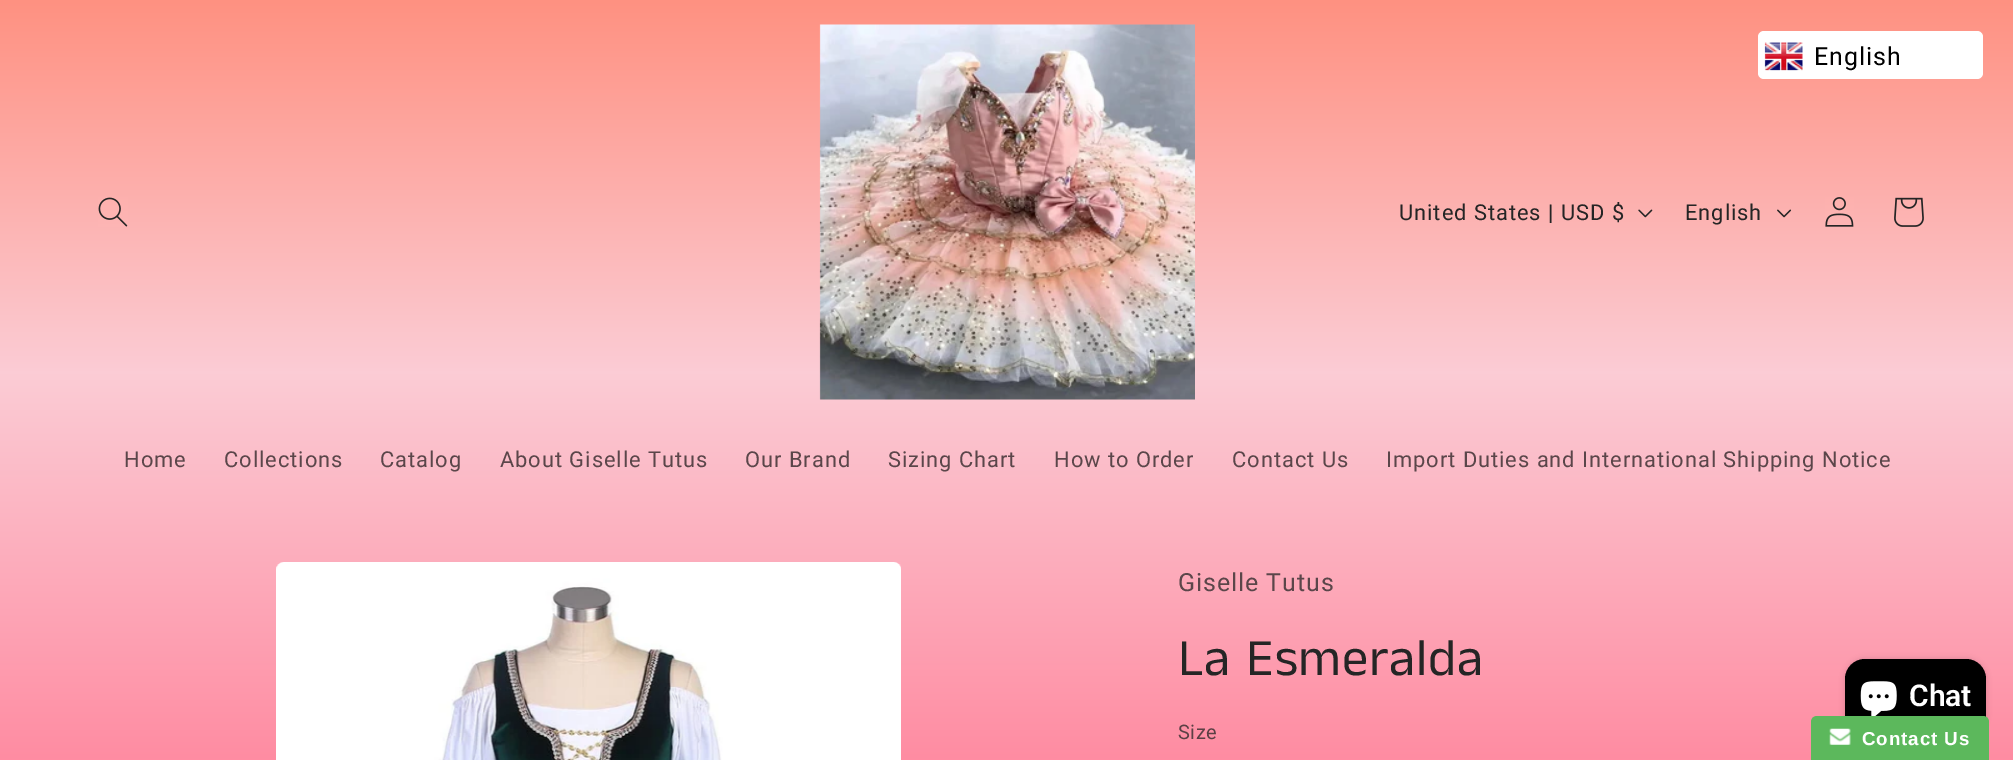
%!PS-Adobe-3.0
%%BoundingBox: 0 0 2013 760
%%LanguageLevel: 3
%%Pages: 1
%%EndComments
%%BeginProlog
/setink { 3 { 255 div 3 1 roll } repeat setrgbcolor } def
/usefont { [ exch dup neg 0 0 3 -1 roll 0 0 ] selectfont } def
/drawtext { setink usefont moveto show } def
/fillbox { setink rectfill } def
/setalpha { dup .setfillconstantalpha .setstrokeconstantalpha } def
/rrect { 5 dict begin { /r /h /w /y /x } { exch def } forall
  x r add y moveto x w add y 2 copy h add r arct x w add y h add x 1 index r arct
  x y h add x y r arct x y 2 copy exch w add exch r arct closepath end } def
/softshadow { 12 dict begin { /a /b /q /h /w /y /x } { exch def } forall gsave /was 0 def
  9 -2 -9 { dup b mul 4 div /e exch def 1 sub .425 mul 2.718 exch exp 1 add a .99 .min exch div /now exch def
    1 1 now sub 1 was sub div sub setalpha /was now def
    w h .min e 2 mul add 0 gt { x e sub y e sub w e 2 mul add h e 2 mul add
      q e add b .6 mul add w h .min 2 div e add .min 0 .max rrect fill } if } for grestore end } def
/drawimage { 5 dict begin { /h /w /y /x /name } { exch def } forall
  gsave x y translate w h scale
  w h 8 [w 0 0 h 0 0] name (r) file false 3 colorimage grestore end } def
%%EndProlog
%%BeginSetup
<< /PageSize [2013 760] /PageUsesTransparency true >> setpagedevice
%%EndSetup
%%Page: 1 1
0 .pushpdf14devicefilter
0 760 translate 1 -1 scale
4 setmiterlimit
0 0 2013 760 255 255 255 fillbox
gsave 0 0 moveto 2013 0 lineto 2013 760 lineto 0 760 lineto closepath clip newpath
<< /ShadingType 2 /ColorSpace /DeviceRGB /Coords [1007 0 1007 760] /Extend [true true] /Function << /FunctionType 3 /Domain [0 1] /Functions [<< /FunctionType 2 /Domain [0 1] /C0 [1 0.569 0.506] /C1 [0.984 0.8 0.835] /N 1 >> << /FunctionType 2 /Domain [0 1] /C0 [0.984 0.8 0.835] /C1 [1 0.549 0.635] /N 1 >>] /Bounds [0.49] /Encode [0 1 0 1] >> >> shfill grestore
1758 31 225 48 6 rrect fill
(assets/img1.rgb) 1764 42 39 29 drawimage
/Roboto-Regular 25 usefont
0 0 0 setink
1814 65 moveto 0.95 0 (English) ashow
(assets/img2.rgb) 98 197 30 30 drawimage
(assets/img3.rgb) 819 24 376 376 drawimage
/Roboto-Regular 21.9 usefont
37 37 37 setink
1399 220 moveto 0.95 0 (United States | USD $) ashow
(assets/img4.rgb) 1638 209 15 9 drawimage
1685 220 moveto 0.95 0 (English) ashow
(assets/img5.rgb) 1777 209 15 9 drawimage
(assets/img6.rgb) 1825 197 29 30 drawimage
(assets/img7.rgb) 1894 197 30 30 drawimage
91 70 74 setink
124 467 moveto 0.95 0 (Home) ashow
224 467 moveto 0.95 0 (Collections) ashow
380 467 moveto 0.95 0 (Catalog) ashow
500 467 moveto 0.95 0 (About Giselle Tutus) ashow
745 467 moveto 0.95 0 (Our Brand) ashow
888 467 moveto 0.95 0 (Sizing Chart) ashow
1054 467 moveto 0.95 0 (How to Order) ashow
1232 467 moveto 0.95 0 (Contact Us) ashow
1386 467 moveto 0.95 0 (Import Duties and International Shipping Notice) ashow
(assets/img8.rgb) 276 562 625 198 drawimage
/Roboto-Regular 25 usefont
1178 591 moveto 0.95 0 (Giselle Tutus) ashow
/AnekTamil-Regular 52.5 usefont
37 37 37 setink
1178 675 moveto 0.75 0 (La Esmeralda) ashow
/Roboto-Regular 20 usefont
92 64 69 setink
1178 739 moveto 0.5 0 (Size) ashow
0 0 0 setink
1845 659 141 75 20 3 0.15 softshadow
1845 659 141 75 20 rrect fill
(assets/img9.rgb) 1860 681 37 35 drawimage
(Chat) 1909 706 /Roboto-SemiBold 30 255 255 255 drawtext
92 184 92 setink
1817 716 moveto 1983 716 lineto 1986.5 716 1989 718.5 1989 722 curveto 1989 760 lineto 1811 760 lineto 1811 722 lineto 1811 718.5 1813.5 716 1817 716 curveto closepath fill
(assets/img10.rgb) 1829 728 22 17 drawimage
/LiberationSans-Bold 18.75 usefont
255 255 255 setink
1862 745 moveto 0.9 0 (Contact Us) ashow
.poppdf14devicefilter showpage
%%EOF
